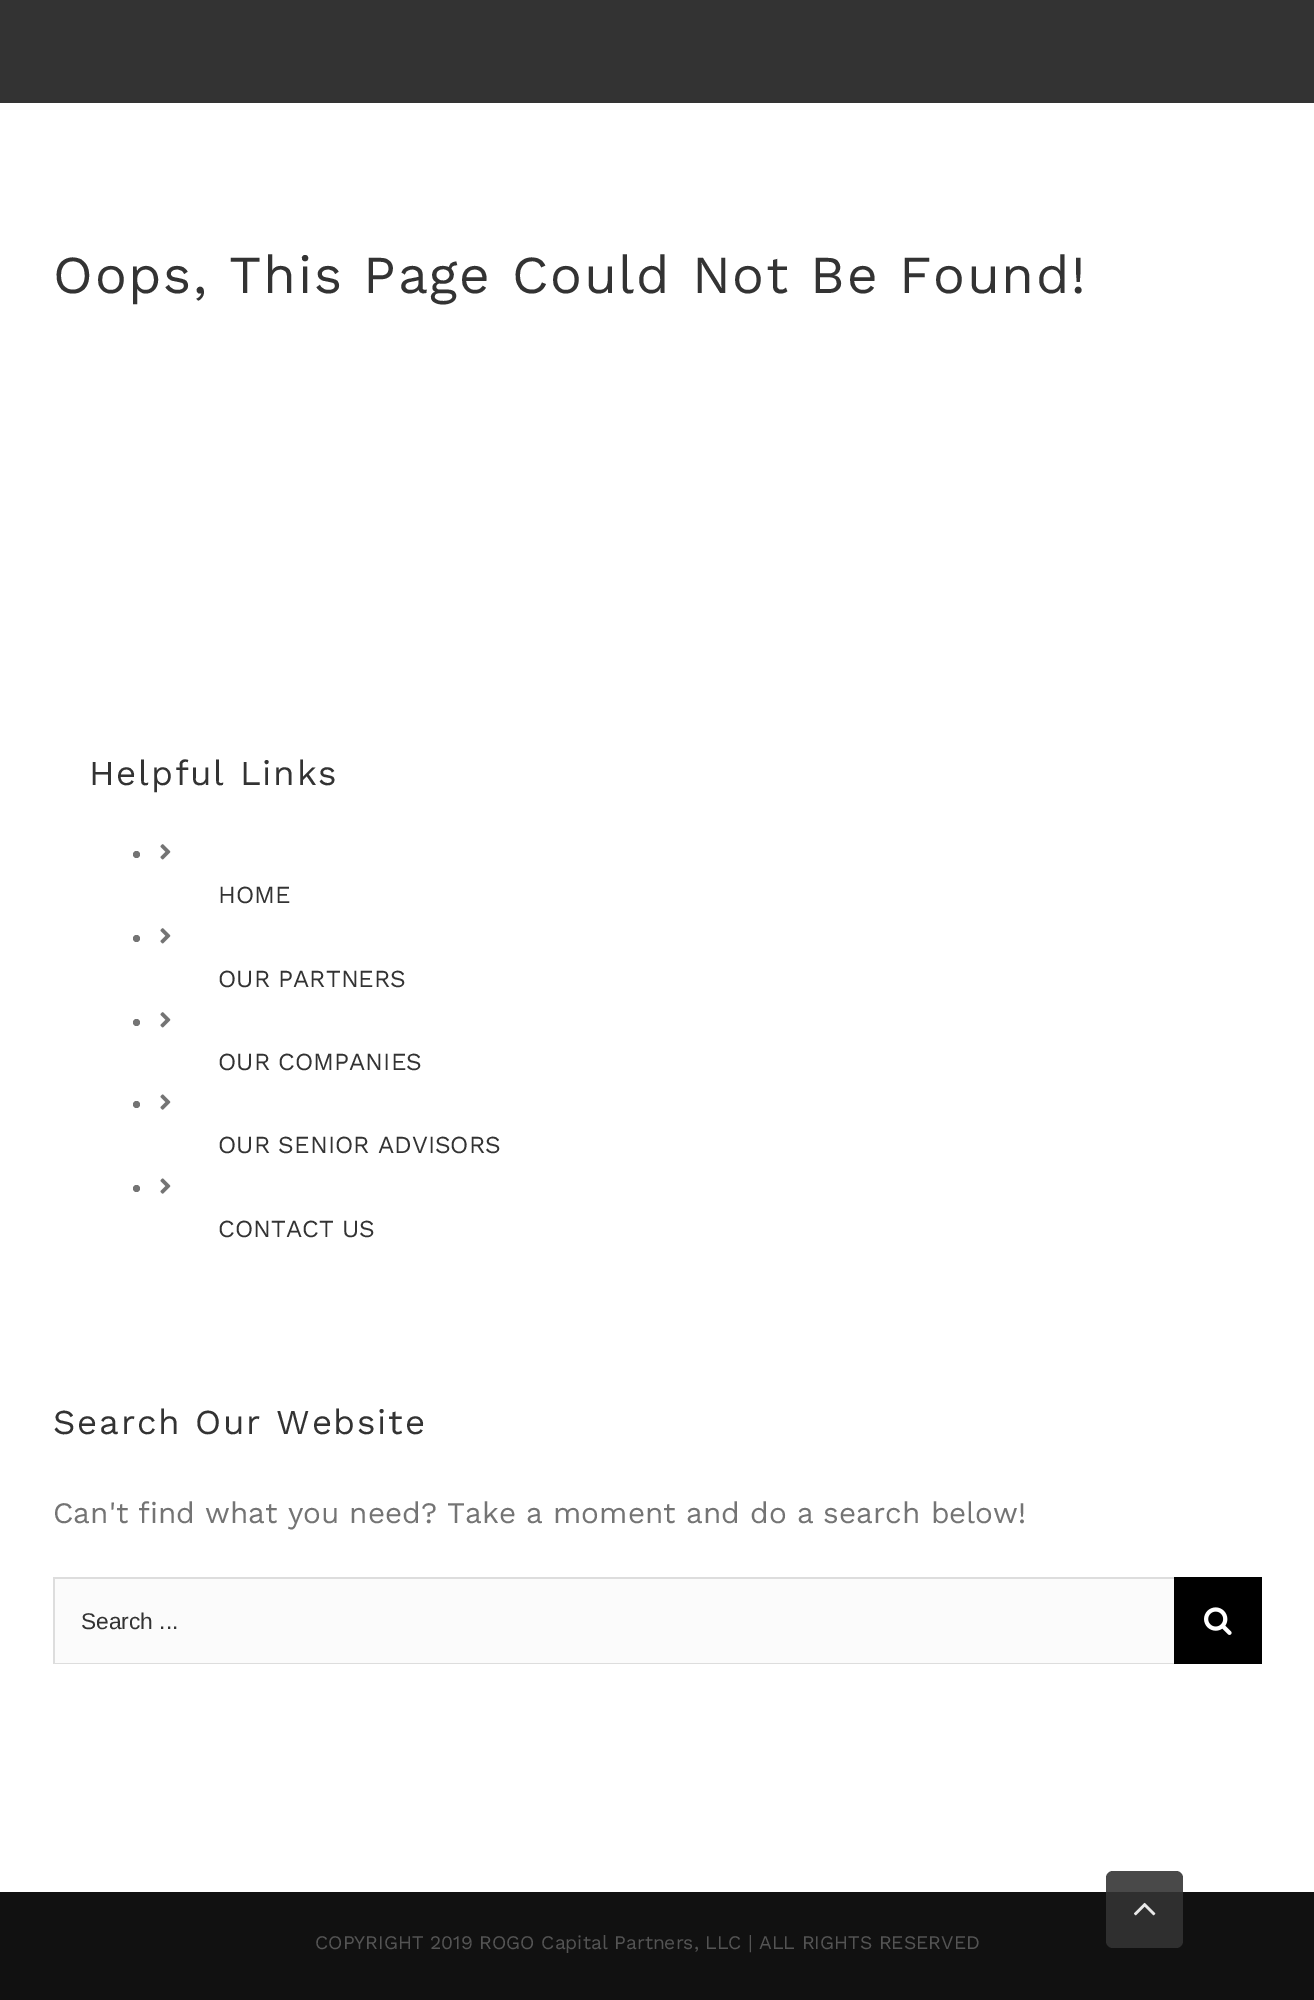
%!PS-Adobe-3.0
%%BoundingBox: 0 0 1314 2000
%%LanguageLevel: 3
%%Pages: 1
%%EndComments
%%BeginProlog
/setink { 3 { 255 div 3 1 roll } repeat setrgbcolor } def
/usefont { [ exch dup neg 0 0 3 -1 roll 0 0 ] selectfont } def
/drawtext { setink usefont moveto show } def
/fillbox { setink rectfill } def
/setalpha { dup .setfillconstantalpha .setstrokeconstantalpha } def
/disc { newpath 0 360 arc closepath } def
/rrect { 5 dict begin { /r /h /w /y /x } { exch def } forall
  x r add y moveto x w add y 2 copy h add r arct x w add y h add x 1 index r arct
  x y h add x y r arct x y 2 copy exch w add exch r arct closepath end } def
/drawimage { 5 dict begin { /h /w /y /x /name } { exch def } forall
  gsave x y translate w h scale
  w h 8 [w 0 0 h 0 0] name (r) file false 3 colorimage grestore end } def
%%EndProlog
%%BeginSetup
<< /PageSize [1314 2000] /PageUsesTransparency true >> setpagedevice
%%EndSetup
%%Page: 1 1
0 .pushpdf14devicefilter
0 2000 translate 1 -1 scale
4 setmiterlimit
0 0 1314 2000 255 255 255 fillbox
0 0 1314 103 51 51 51 fillbox
/WorkSans-Regular 53.25 usefont
53 293 moveto 1.75 0 (Oops, This Page Could Not Be Found!) ashow
/WorkSans-Regular 35 usefont
89 785 moveto 1.75 0 (Helpful Links) ashow
116 116 116 setink
136.5 854.5 3.5 disc fill
(assets/img1.rgb) 160 844 11 16 drawimage
(HOME) 218 903 /WorkSans-Regular 24.5 51 51 51 drawtext
116 116 116 setink
136.5 938.5 3.5 disc fill
(assets/img1.rgb) 160 928 11 16 drawimage
(OUR PARTNERS) 218 987 /WorkSans-Regular 24.5 51 51 51 drawtext
116 116 116 setink
136.5 1022.5 3.5 disc fill
(assets/img1.rgb) 160 1012 11 16 drawimage
(OUR COMPANIES) 218 1070 /WorkSans-Regular 24.5 51 51 51 drawtext
116 116 116 setink
136.5 1104.5 3.5 disc fill
(assets/img2.rgb) 160 1094 11 16 drawimage
(OUR SENIOR ADVISORS) 218 1153 /WorkSans-Regular 24.5 51 51 51 drawtext
116 116 116 setink
136.5 1188.5 3.5 disc fill
(assets/img2.rgb) 160 1178 11 16 drawimage
(CONTACT US) 218 1237 /WorkSans-Regular 24.5 51 51 51 drawtext
/WorkSans-Regular 35 usefont
53 1434 moveto 1.75 0 (Search Our Website) ashow
(Can't find what you need? Take a moment and do a search below!) 53 1523 /WorkSans-Regular 29.75 116 116 116 drawtext
55 1579 1119 84 251 251 251 fillbox
53 1577 1121 2 221 221 221 fillbox
53 1663 1121 1 221 221 221 fillbox
53 1577 2 87 221 221 221 fillbox
(Search ...) 81 1629 /LiberationSans-Regular 22.75 51 51 51 drawtext
1174 1577 88 87 0 0 0 fillbox
(assets/img3.rgb) 1204 1607 28 28 drawimage
0 1892 1314 108 17 17 17 fillbox
(COPYRIGHT 2019 ROGO Capital Partners, LLC | ALL RIGHTS RESERVED) 315 1949 /WorkSans-Regular 19.25 84 84 84 drawtext
0.89 setalpha
51 51 51 setink
1106 1871 77 77 7 rrect fill
1 setalpha
(assets/img4.rgb) 1134 1902 22 14 drawimage
.poppdf14devicefilter showpage
%%EOF
